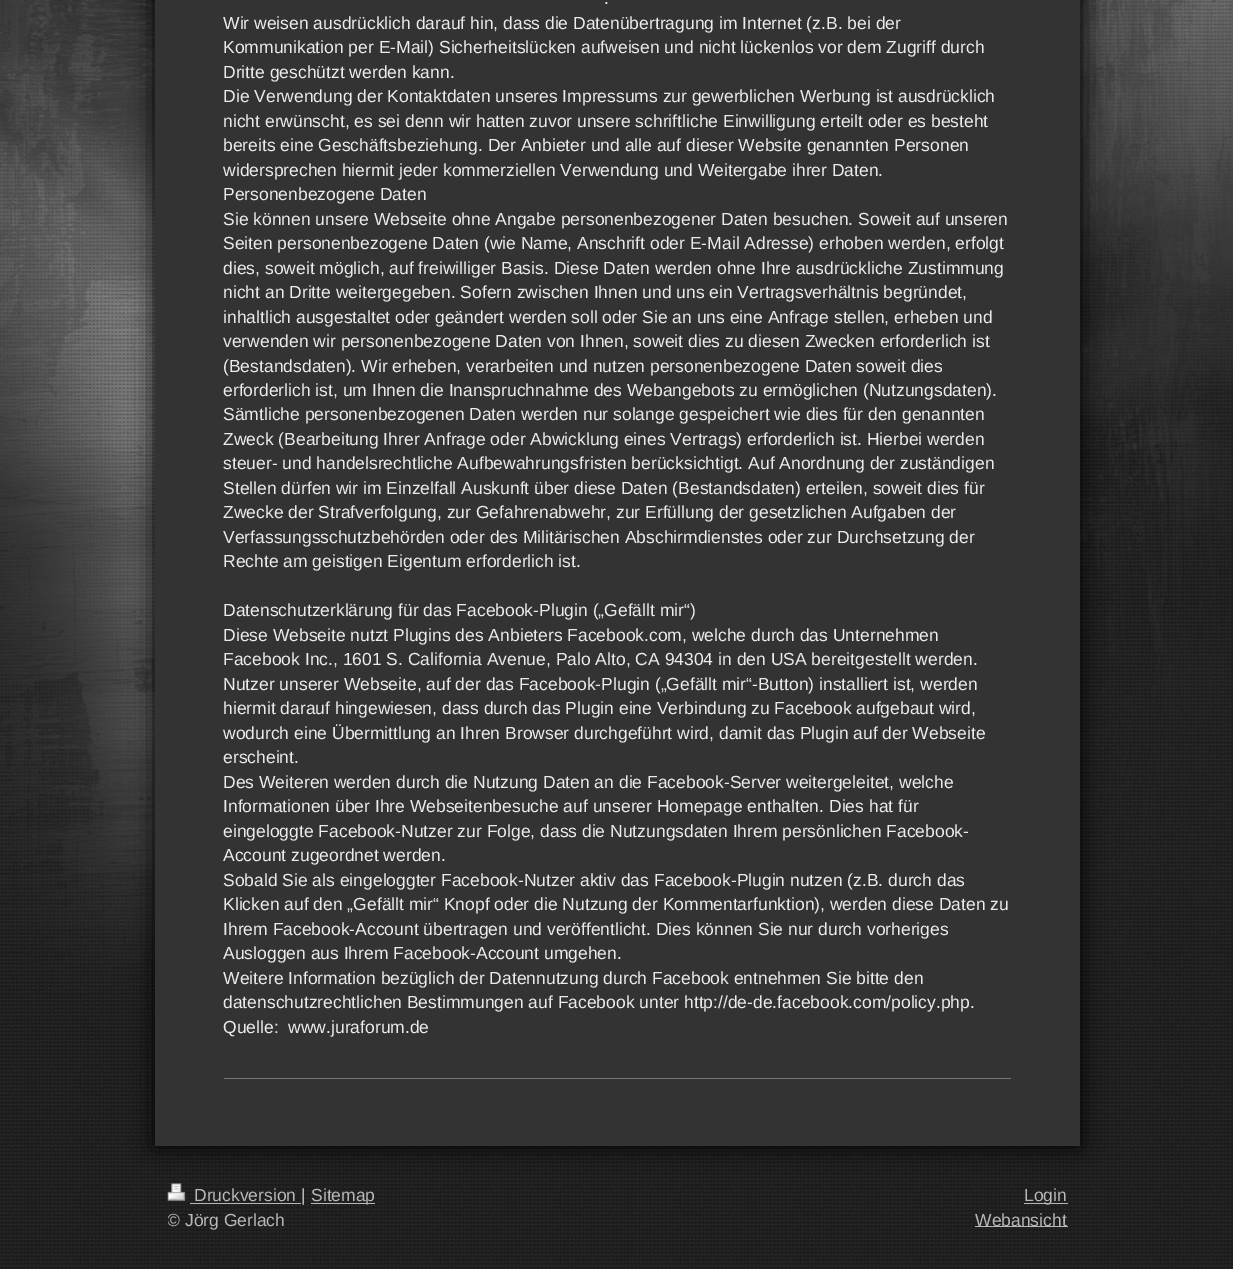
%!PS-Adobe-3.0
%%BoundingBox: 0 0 1233 1269
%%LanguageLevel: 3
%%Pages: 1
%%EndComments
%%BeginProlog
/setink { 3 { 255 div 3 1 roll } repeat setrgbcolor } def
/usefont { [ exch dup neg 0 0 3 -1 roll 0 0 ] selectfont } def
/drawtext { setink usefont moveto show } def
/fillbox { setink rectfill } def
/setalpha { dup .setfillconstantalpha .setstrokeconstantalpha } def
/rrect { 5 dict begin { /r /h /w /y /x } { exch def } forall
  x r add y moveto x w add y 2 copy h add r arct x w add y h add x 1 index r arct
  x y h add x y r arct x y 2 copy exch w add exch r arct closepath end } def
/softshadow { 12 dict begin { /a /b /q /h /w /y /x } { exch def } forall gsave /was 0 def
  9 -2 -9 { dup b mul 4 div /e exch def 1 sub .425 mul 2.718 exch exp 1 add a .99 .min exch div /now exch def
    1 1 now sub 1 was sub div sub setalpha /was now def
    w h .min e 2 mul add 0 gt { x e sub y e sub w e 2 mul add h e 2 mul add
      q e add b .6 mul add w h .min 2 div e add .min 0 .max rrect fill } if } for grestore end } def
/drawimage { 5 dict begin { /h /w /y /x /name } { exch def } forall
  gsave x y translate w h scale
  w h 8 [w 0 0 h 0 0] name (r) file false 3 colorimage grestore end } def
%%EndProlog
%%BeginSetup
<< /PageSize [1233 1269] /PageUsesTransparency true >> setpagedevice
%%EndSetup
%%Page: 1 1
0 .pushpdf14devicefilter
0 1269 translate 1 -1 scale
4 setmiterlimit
0 0 1233 1269 255 255 255 fillbox
(assets/img1.rgb) 0 0 1233 1269 drawimage
0 0 0 setink
155 -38 925 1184 0 12.5 1 softshadow
155 0 925 1146 51 51 51 fillbox
(.) 604 4 /LiberationSans-Regular 17.5 235 235 235 drawtext
(Wir weisen ausdrücklich darauf hin, dass die Datenübertragung im Internet \(z.B. bei der) 223 29 /LiberationSans-Regular 17.5 235 235 235 drawtext
(Kommunikation per E-Mail\) Sicherheitslücken aufweisen und nicht lückenlos vor dem Zugriff durch) 223 53 /LiberationSans-Regular 17.5 235 235 235 drawtext
(Dritte geschützt werden kann.) 223 78 /LiberationSans-Regular 17.5 235 235 235 drawtext
(Die Verwendung der Kontaktdaten unseres Impressums zur gewerblichen Werbung ist ausdrücklich) 223 102 /LiberationSans-Regular 17.5 235 235 235 drawtext
(nicht erwünscht, es sei denn wir hatten zuvor unsere schriftliche Einwilligung erteilt oder es besteht) 223 127 /LiberationSans-Regular 17.5 235 235 235 drawtext
(bereits eine Geschäftsbeziehung. Der Anbieter und alle auf dieser Website genannten Personen) 223 151 /LiberationSans-Regular 17.5 235 235 235 drawtext
(widersprechen hiermit jeder kommerziellen Verwendung und Weitergabe ihrer Daten.) 223 176 /LiberationSans-Regular 17.5 235 235 235 drawtext
(Personenbezogene Daten) 223 200 /LiberationSans-Regular 17.5 235 235 235 drawtext
(Sie können unsere Webseite ohne Angabe personenbezogener Daten besuchen. Soweit auf unseren) 223 225 /LiberationSans-Regular 17.5 235 235 235 drawtext
(Seiten personenbezogene Daten \(wie Name, Anschrift oder E-Mail Adresse\) erhoben werden, erfolgt) 223 249 /LiberationSans-Regular 17.5 235 235 235 drawtext
(dies, soweit möglich, auf freiwilliger Basis. Diese Daten werden ohne Ihre ausdrückliche Zustimmung) 223 274 /LiberationSans-Regular 17.5 235 235 235 drawtext
(nicht an Dritte weitergegeben. Sofern zwischen Ihnen und uns ein Vertragsverhältnis begründet,) 223 298 /LiberationSans-Regular 17.5 235 235 235 drawtext
(inhaltlich ausgestaltet oder geändert werden soll oder Sie an uns eine Anfrage stellen, erheben und) 223 323 /LiberationSans-Regular 17.5 235 235 235 drawtext
(verwenden wir personenbezogene Daten von Ihnen, soweit dies zu diesen Zwecken erforderlich ist) 223 347 /LiberationSans-Regular 17.5 235 235 235 drawtext
(\(Bestandsdaten\). Wir erheben, verarbeiten und nutzen personenbezogene Daten soweit dies) 223 372 /LiberationSans-Regular 17.5 235 235 235 drawtext
(erforderlich ist, um Ihnen die Inanspruchnahme des Webangebots zu ermöglichen \(Nutzungsdaten\).) 223 396 /LiberationSans-Regular 17.5 235 235 235 drawtext
(Sämtliche personenbezogenen Daten werden nur solange gespeichert wie dies für den genannten) 223 420 /LiberationSans-Regular 17.5 235 235 235 drawtext
(Zweck \(Bearbeitung Ihrer Anfrage oder Abwicklung eines Vertrags\) erforderlich ist. Hierbei werden) 223 445 /LiberationSans-Regular 17.5 235 235 235 drawtext
(steuer- und handelsrechtliche Aufbewahrungsfristen berücksichtigt. Auf Anordnung der zuständigen) 223 469 /LiberationSans-Regular 17.5 235 235 235 drawtext
(Stellen dürfen wir im Einzelfall Auskunft über diese Daten \(Bestandsdaten\) erteilen, soweit dies für) 223 494 /LiberationSans-Regular 17.5 235 235 235 drawtext
(Zwecke der Strafverfolgung, zur Gefahrenabwehr, zur Erfüllung der gesetzlichen Aufgaben der) 223 518 /LiberationSans-Regular 17.5 235 235 235 drawtext
(Verfassungsschutzbehörden oder des Militärischen Abschirmdienstes oder zur Durchsetzung der) 223 543 /LiberationSans-Regular 17.5 235 235 235 drawtext
(Rechte am geistigen Eigentum erforderlich ist.) 223 567 /LiberationSans-Regular 17.5 235 235 235 drawtext
(Datenschutzerklärung für das Facebook-Plugin \(„Gefällt mir“\)) 223 616 /LiberationSans-Regular 17.5 235 235 235 drawtext
(Diese Webseite nutzt Plugins des Anbieters Facebook.com, welche durch das Unternehmen) 223 641 /LiberationSans-Regular 17.5 235 235 235 drawtext
(Facebook Inc., 1601 S. California Avenue, Palo Alto, CA 94304 in den USA bereitgestellt werden.) 223 665 /LiberationSans-Regular 17.5 235 235 235 drawtext
(Nutzer unserer Webseite, auf der das Facebook-Plugin \(„Gefällt mir“-Button\) installiert ist, werden) 223 690 /LiberationSans-Regular 17.5 235 235 235 drawtext
(hiermit darauf hingewiesen, dass durch das Plugin eine Verbindung zu Facebook aufgebaut wird,) 223 714 /LiberationSans-Regular 17.5 235 235 235 drawtext
(wodurch eine Übermittlung an Ihren Browser durchgeführt wird, damit das Plugin auf der Webseite) 223 739 /LiberationSans-Regular 17.5 235 235 235 drawtext
(erscheint.) 223 763 /LiberationSans-Regular 17.5 235 235 235 drawtext
(Des Weiteren werden durch die Nutzung Daten an die Facebook-Server weitergeleitet, welche) 223 788 /LiberationSans-Regular 17.5 235 235 235 drawtext
(Informationen über Ihre Webseitenbesuche auf unserer Homepage enthalten. Dies hat für) 223 812 /LiberationSans-Regular 17.5 235 235 235 drawtext
(eingeloggte Facebook-Nutzer zur Folge, dass die Nutzungsdaten Ihrem persönlichen Facebook-) 223 837 /LiberationSans-Regular 17.5 235 235 235 drawtext
(Account zugeordnet werden.) 223 861 /LiberationSans-Regular 17.5 235 235 235 drawtext
(Sobald Sie als eingeloggter Facebook-Nutzer aktiv das Facebook-Plugin nutzen \(z.B. durch das) 223 886 /LiberationSans-Regular 17.5 235 235 235 drawtext
(Klicken auf den „Gefällt mir“ Knopf oder die Nutzung der Kommentarfunktion\), werden diese Daten zu) 223 910 /LiberationSans-Regular 17.5 235 235 235 drawtext
(Ihrem Facebook-Account übertragen und veröffentlicht. Dies können Sie nur durch vorheriges) 223 935 /LiberationSans-Regular 17.5 235 235 235 drawtext
(Ausloggen aus Ihrem Facebook-Account umgehen.) 223 959 /LiberationSans-Regular 17.5 235 235 235 drawtext
(Weitere Information bezüglich der Datennutzung durch Facebook entnehmen Sie bitte den) 223 984 /LiberationSans-Regular 17.5 235 235 235 drawtext
(datenschutzrechtlichen Bestimmungen auf Facebook unter http://de-de.facebook.com/policy.php.) 223 1008 /LiberationSans-Regular 17.5 235 235 235 drawtext
(Quelle:  www.juraforum.de) 223 1033 /LiberationSans-Regular 17.5 235 235 235 drawtext
224 1078 787 1 120 120 120 fillbox
(assets/img2.rgb) 167 1183 19 18 drawimage
190 1203 111 1 184 184 184 fillbox
(Druckversion |) 194 1201 /LiberationSans-Regular 17.5 184 184 184 drawtext
311 1203 64 1 184 184 184 fillbox
(Sitemap) 311 1201 /LiberationSans-Regular 17.5 184 184 184 drawtext
gsave
168 1184 900 49 rectclip
(© Jörg Gerlach) 167 1226 /LiberationSans-Regular 17.5 184 184 184 drawtext
grestore
1024 1203 44 1 184 184 184 fillbox
(Login) 1024 1201 /LiberationSans-Regular 17.5 184 184 184 drawtext
975 1226 93 1 184 184 184 fillbox
(Webansicht) 975 1226 /LiberationSans-Regular 17.5 184 184 184 drawtext
.poppdf14devicefilter showpage
%%EOF
